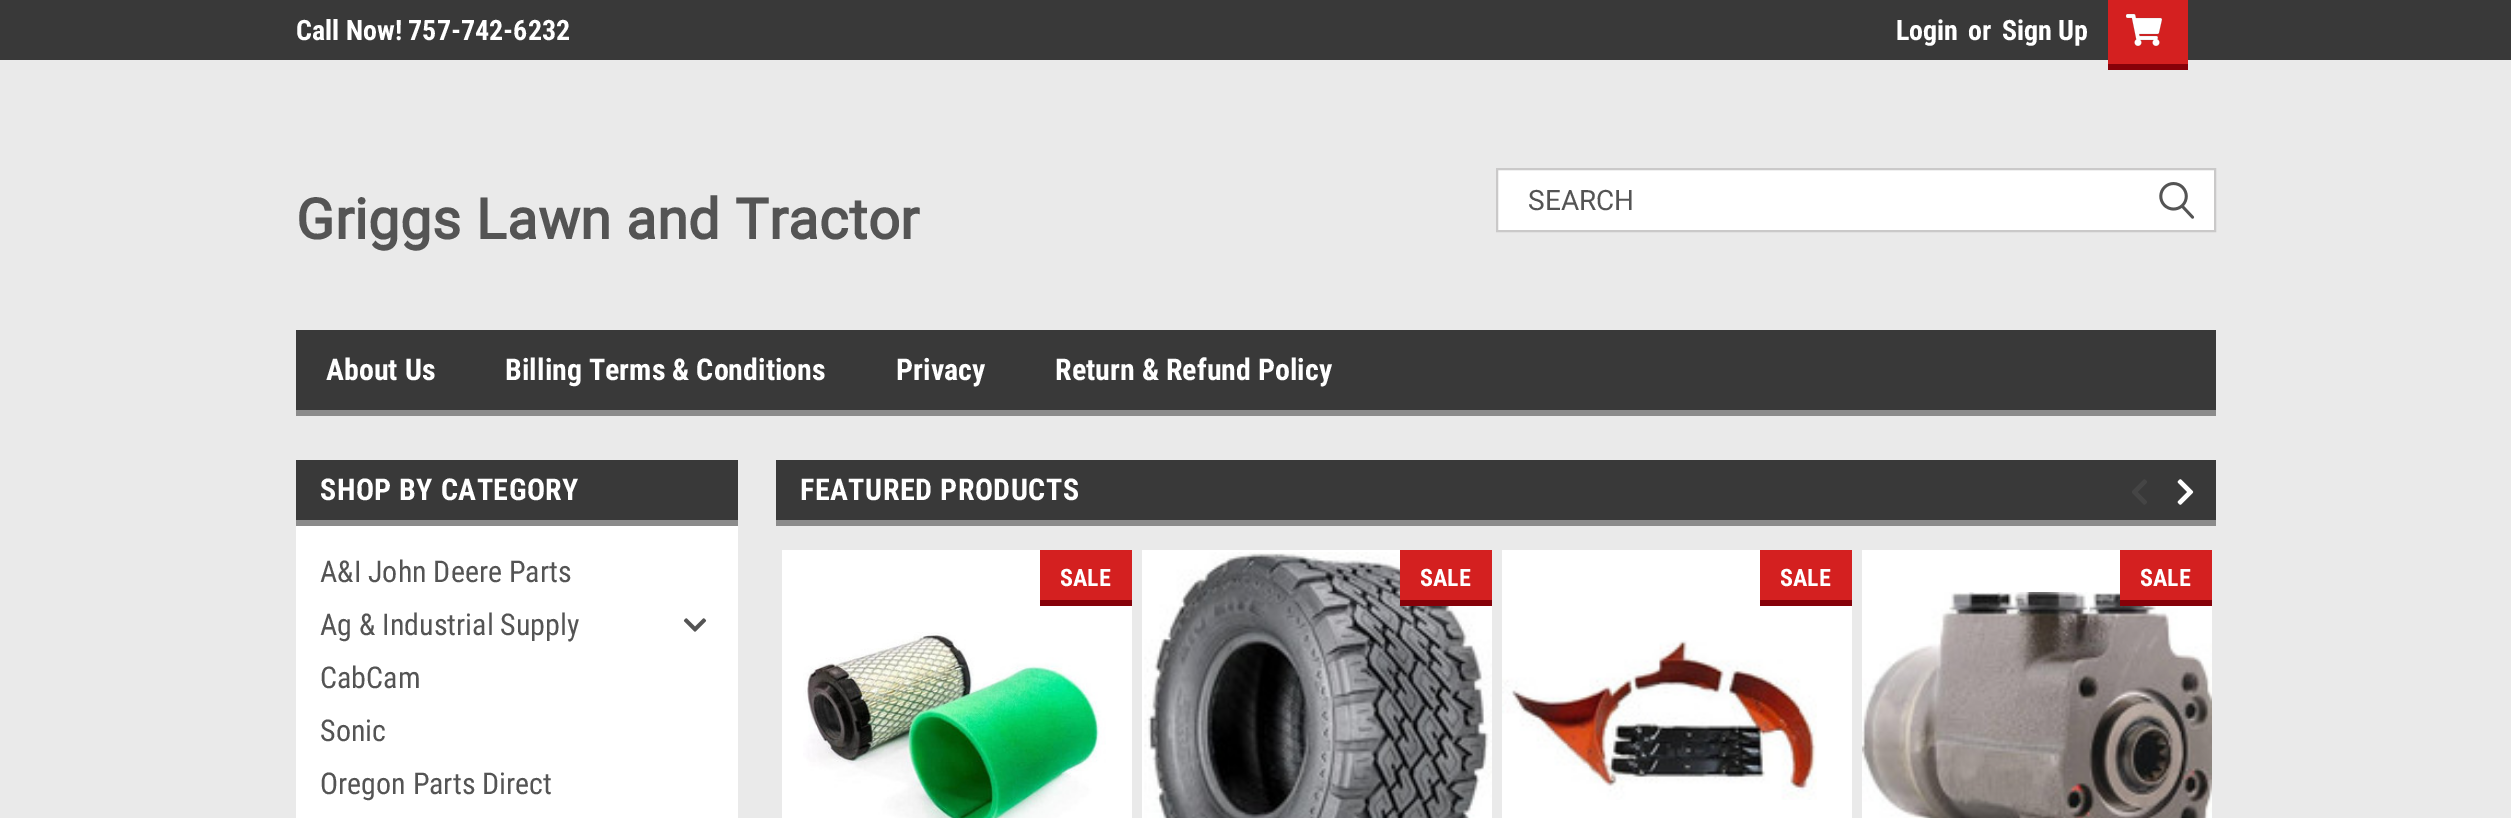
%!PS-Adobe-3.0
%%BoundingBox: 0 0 2511 818
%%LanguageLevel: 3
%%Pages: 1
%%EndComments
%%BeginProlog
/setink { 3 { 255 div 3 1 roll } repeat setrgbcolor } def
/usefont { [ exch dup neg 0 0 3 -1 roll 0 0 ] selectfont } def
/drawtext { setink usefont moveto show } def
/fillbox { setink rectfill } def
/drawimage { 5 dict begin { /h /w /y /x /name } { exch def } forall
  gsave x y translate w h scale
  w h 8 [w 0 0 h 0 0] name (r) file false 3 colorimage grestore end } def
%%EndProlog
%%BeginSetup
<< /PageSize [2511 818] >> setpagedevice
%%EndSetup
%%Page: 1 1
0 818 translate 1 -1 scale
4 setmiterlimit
0 0 2511 818 234 234 234 fillbox
0 0 2511 60 57 57 57 fillbox
(Call Now! 757-742-6232) 296 40 /RobotoCondensed-Bold 28 255 255 255 drawtext
(Login) 1896 40 /RobotoCondensed-Bold 28 255 255 255 drawtext
(or) 1968 40 /RobotoCondensed-Bold 28 255 255 255 drawtext
(Sign Up) 2002 40 /RobotoCondensed-Bold 28 255 255 255 drawtext
2108 0 80 64 212 32 32 fillbox
2108 64 80 6 134 1 9 fillbox
(assets/img1.rgb) 2126 13 36 33 drawimage
/Roboto-Bold 56 usefont
84 84 84 setink
296 239 moveto 0.5 0 (Griggs Lawn and Tractor) ashow
255 255 255 setink
1497 169 moveto 2215 169 lineto 2215 231 lineto 1497 231 lineto closepath gsave fill grestore
202 201 201 setink
2 setlinewidth
stroke
(SEARCH) 1528 210 /Roboto-Regular 28 84 84 84 drawtext
(assets/img2.rgb) 2159 182 36 37 drawimage
296 330 1920 80 57 57 57 fillbox
296 410 1920 6 139 139 139 fillbox
(About Us) 326 380 /RobotoCondensed-Bold 30 255 255 255 drawtext
(Billing Terms & Conditions) 505 380 /RobotoCondensed-Bold 30 255 255 255 drawtext
(Privacy) 896 380 /RobotoCondensed-Bold 30 255 255 255 drawtext
(Return & Refund Policy) 1055 380 /RobotoCondensed-Bold 30 255 255 255 drawtext
296 460 442 60 57 57 57 fillbox
296 520 442 6 139 139 139 fillbox
255 255 255 setink
320 500 moveto 0.5 0 (SHOP BY CATEGORY) ashow
296 526 442 292 255 255 255 fillbox
(A&I John Deere Parts) 320 582 /RobotoCondensed-Regular 30 84 84 84 drawtext
(Ag & Industrial Supply) 320 635 /RobotoCondensed-Regular 30 84 84 84 drawtext
(assets/img3.rgb) 683 618 24 14 drawimage
(CabCam) 320 688 /RobotoCondensed-Regular 30 84 84 84 drawtext
(Sonic) 320 741 /RobotoCondensed-Regular 30 84 84 84 drawtext
(Oregon Parts Direct) 320 794 /RobotoCondensed-Regular 30 84 84 84 drawtext
776 460 1440 60 57 57 57 fillbox
776 520 1440 6 139 139 139 fillbox
/RobotoCondensed-Bold 30 usefont
255 255 255 setink
800 500 moveto 0.5 0 (FEATURED PRODUCTS) ashow
(assets/img4.rgb) 2132 479 15 26 drawimage
(assets/img5.rgb) 2177 479 17 26 drawimage
782 550 350 268 255 255 255 fillbox
1040 550 92 50 212 32 32 fillbox
1040 600 92 6 134 1 9 fillbox
(SALE) 1060 586 /RobotoCondensed-Bold 24 255 255 255 drawtext
(assets/img6.rgb) 803 632 303 186 drawimage
1142 550 258 268 255 255 255 fillbox
(assets/img7.rgb) 1144 552 348 266 drawimage
1400 550 92 50 212 32 32 fillbox
1400 600 92 6 134 1 9 fillbox
(SALE) 1420 586 /RobotoCondensed-Bold 24 255 255 255 drawtext
1502 550 350 268 255 255 255 fillbox
1760 550 92 50 212 32 32 fillbox
1760 600 92 6 134 1 9 fillbox
(SALE) 1780 586 /RobotoCondensed-Bold 24 255 255 255 drawtext
(assets/img8.rgb) 1502 640 315 160 drawimage
1862 550 258 42 255 255 255 fillbox
(assets/img9.rgb) 1862 592 350 226 drawimage
2120 550 92 50 212 32 32 fillbox
2120 600 92 6 134 1 9 fillbox
(SALE) 2140 586 /RobotoCondensed-Bold 24 255 255 255 drawtext
showpage
%%EOF
